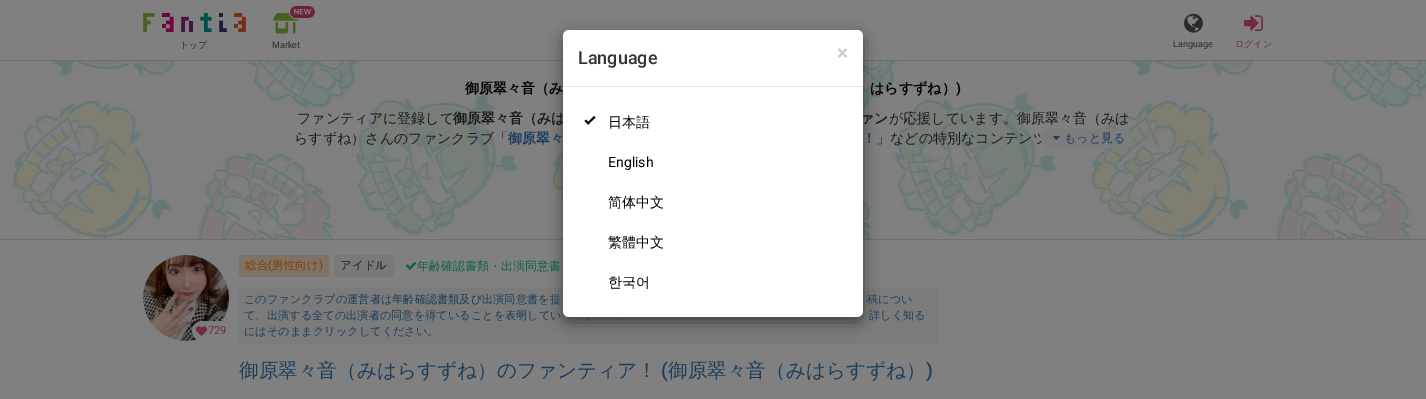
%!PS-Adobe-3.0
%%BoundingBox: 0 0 1426 399
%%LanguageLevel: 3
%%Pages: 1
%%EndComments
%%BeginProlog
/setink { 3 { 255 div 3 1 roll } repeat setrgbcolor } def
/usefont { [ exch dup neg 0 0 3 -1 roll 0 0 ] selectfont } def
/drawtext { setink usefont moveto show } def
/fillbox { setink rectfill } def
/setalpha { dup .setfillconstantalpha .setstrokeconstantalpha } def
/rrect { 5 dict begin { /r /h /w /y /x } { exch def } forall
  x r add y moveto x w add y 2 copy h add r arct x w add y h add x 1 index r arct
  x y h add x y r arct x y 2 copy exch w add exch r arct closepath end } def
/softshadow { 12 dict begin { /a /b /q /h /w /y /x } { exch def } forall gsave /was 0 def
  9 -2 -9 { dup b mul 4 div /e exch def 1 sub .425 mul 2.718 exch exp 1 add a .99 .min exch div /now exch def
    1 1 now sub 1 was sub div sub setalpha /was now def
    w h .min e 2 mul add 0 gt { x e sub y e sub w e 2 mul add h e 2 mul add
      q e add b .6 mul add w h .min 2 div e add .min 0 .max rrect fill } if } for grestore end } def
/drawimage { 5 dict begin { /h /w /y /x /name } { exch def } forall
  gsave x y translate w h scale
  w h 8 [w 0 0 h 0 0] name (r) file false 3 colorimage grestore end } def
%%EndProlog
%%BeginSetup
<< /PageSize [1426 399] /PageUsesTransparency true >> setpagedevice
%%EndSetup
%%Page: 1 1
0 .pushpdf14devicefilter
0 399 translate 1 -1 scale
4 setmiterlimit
0 0 1426 399 128 128 128 fillbox
0 60 1426 1 111 111 111 fillbox
(assets/img1.rgb) 143 13 103 19 drawimage
(トップ) 180 48 /WenQuanYiZenHei-Medium 9 43 43 43 drawtext
(assets/img2.rgb) 273 13 25 21 drawimage
128 128 128 setink
289.5 5.5 26 13 6.5 rrect stroke
(assets/img3.rgb) 290 6 25 12 drawimage
(Market) 272 48 /Roboto-Regular 9 43 43 43 drawtext
(assets/img4.rgb) 1184 13 19 20 drawimage
(Language) 1173 47 /Roboto-Regular 9 43 43 43 drawtext
(assets/img5.rgb) 1244 15 19 16 drawimage
(ログイン) 1235 47 /WenQuanYiZenHei-Medium 9 117 38 69 drawtext
(assets/img6.rgb) 9 61 1417 178 drawimage
0 239 1426 1 111 111 111 fillbox
123 123 123 setink
239 287 700 58 4 rrect fill
0 0 0 setink
563 35 300 287 6 7.5 0.5 softshadow
(御原翠々音（みは) 453 123 /WenQuanYiZenHei-Bold 14 26 26 26 drawtext
255 255 255 setink
563 30 300 287 6 rrect fill
563 86 300 1 229 229 229 fillbox
(Language) 578 64 /Roboto-Medium 18 51 51 51 drawtext
(×) 837 60 /Roboto-Bold 21 204 204 204 drawtext
0 0 0 setink
587 123 moveto 594 116 lineto 595.5 117.5 lineto 588 124.5 lineto closepath fill
584.5 121 moveto 586 119.5 lineto 589.5 123 lineto 588 124.5 lineto closepath fill
(日本語) 608 127 /WenQuanYiZenHei-Medium 14 0 0 0 drawtext
(English) 608 167 /Roboto-Regular 14 0 0 0 drawtext
(简体中文) 608 207 /WenQuanYiZenHei-Medium 14 0 0 0 drawtext
(繁體中文) 608 247 /WenQuanYiZenHei-Medium 14 0 0 0 drawtext
(한국어) 608 287 /WenQuanYiZenHei-Medium 14 0 0 0 drawtext
(御原翠々音（み) 465 93 /WenQuanYiZenHei-Bold 14 0 0 0 drawtext
(はらすずね）) 870 93 /WenQuanYiZenHei-Bold 14 0 0 0 drawtext
(\)) 956 93 /Roboto-Bold 14 0 0 0 drawtext
(ファンティアに登録して) 297 123 /WenQuanYiZenHei-Medium 14 26 26 26 drawtext
(ァン) 860 123 /WenQuanYiZenHei-Bold 14 26 26 26 drawtext
(が応援しています。御原翠々音（みは) 889 123 /WenQuanYiZenHei-Medium 14 26 26 26 drawtext
(らすずね）さんのファンクラブ「) 294 143 /WenQuanYiZenHei-Medium 14 26 26 26 drawtext
(御原翠々) 508 143 /WenQuanYiZenHei-Bold 14 26 61 92 drawtext
(！) 862 143 /WenQuanYiZenHei-Bold 14 26 61 92 drawtext
(」などの特別なコンテンツ) 876 143 /WenQuanYiZenHei-Medium 14 26 26 26 drawtext
124 124 124 setink
1041 129 92 19 9.5 rrect fill
(assets/img7.rgb) 1053 136 7 4 drawimage
(もっと見る) 1064 142 /WenQuanYiZenHei-Medium 12 26 61 92 drawtext
(assets/img8.rgb) 143 255 86 86 drawimage
0.95 setalpha
128 128 128 setink
192 321 37 20 10 rrect fill
1 setalpha
(assets/img9.rgb) 196 326 11 10 drawimage
(729) 208 334 /Roboto-Regular 11 117 38 69 drawtext
127 114 100 setink
239 255 90 22 3 rrect fill
(総合) 245 269 /WenQuanYiZenHei-Medium 11.5 128 64 0 drawtext
(\() 268 269 /Roboto-Regular 11.5 128 64 0 drawtext
(男性向け) 272 269 /WenQuanYiZenHei-Medium 11.5 128 64 0 drawtext
(\)) 319 269 /Roboto-Regular 11.5 128 64 0 drawtext
121 121 121 setink
334 255 60 22 3 rrect fill
(アイドル) 340 269 /WenQuanYiZenHei-Medium 11.5 26 26 26 drawtext
(assets/img10.rgb) 405 262 12 8 drawimage
(年齢確認書類・出演同意書) 417 270 /WenQuanYiZenHei-Medium 12 17 97 66 drawtext
(このファンクラブの運営者は年齢確認書類及び出演同意書を提) 244 303 /WenQuanYiZenHei-Medium 11.2 26 61 92 drawtext
(稿につい) 867 303 /WenQuanYiZenHei-Medium 11.2 26 61 92 drawtext
(て、出演する全ての出演者の同意を得ていることを表明してい) 244 319 /WenQuanYiZenHei-Medium 11.2 26 61 92 drawtext
(。) 585 319 /WenQuanYiZenHei-Medium 11.2 26 61 92 drawtext
(、) 619 319 /WenQuanYiZenHei-Medium 11.2 26 61 92 drawtext
(詳しく知る) 869 319 /WenQuanYiZenHei-Medium 11.2 26 61 92 drawtext
(にはそのままクリックしてください。) 244 335 /WenQuanYiZenHei-Medium 11.2 26 61 92 drawtext
(御原翠々音（みはらすずね）のファンティア！) 239 377 /WenQuanYiZenHei-Medium 19.6 26 61 92 drawtext
(\() 661 377 /Roboto-Medium 19.6 26 61 92 drawtext
(御原翠々音（みはらすずね）) 668 377 /WenQuanYiZenHei-Medium 19.6 26 61 92 drawtext
(\)) 926 377 /Roboto-Medium 19.6 26 61 92 drawtext
.poppdf14devicefilter showpage
%%EOF
